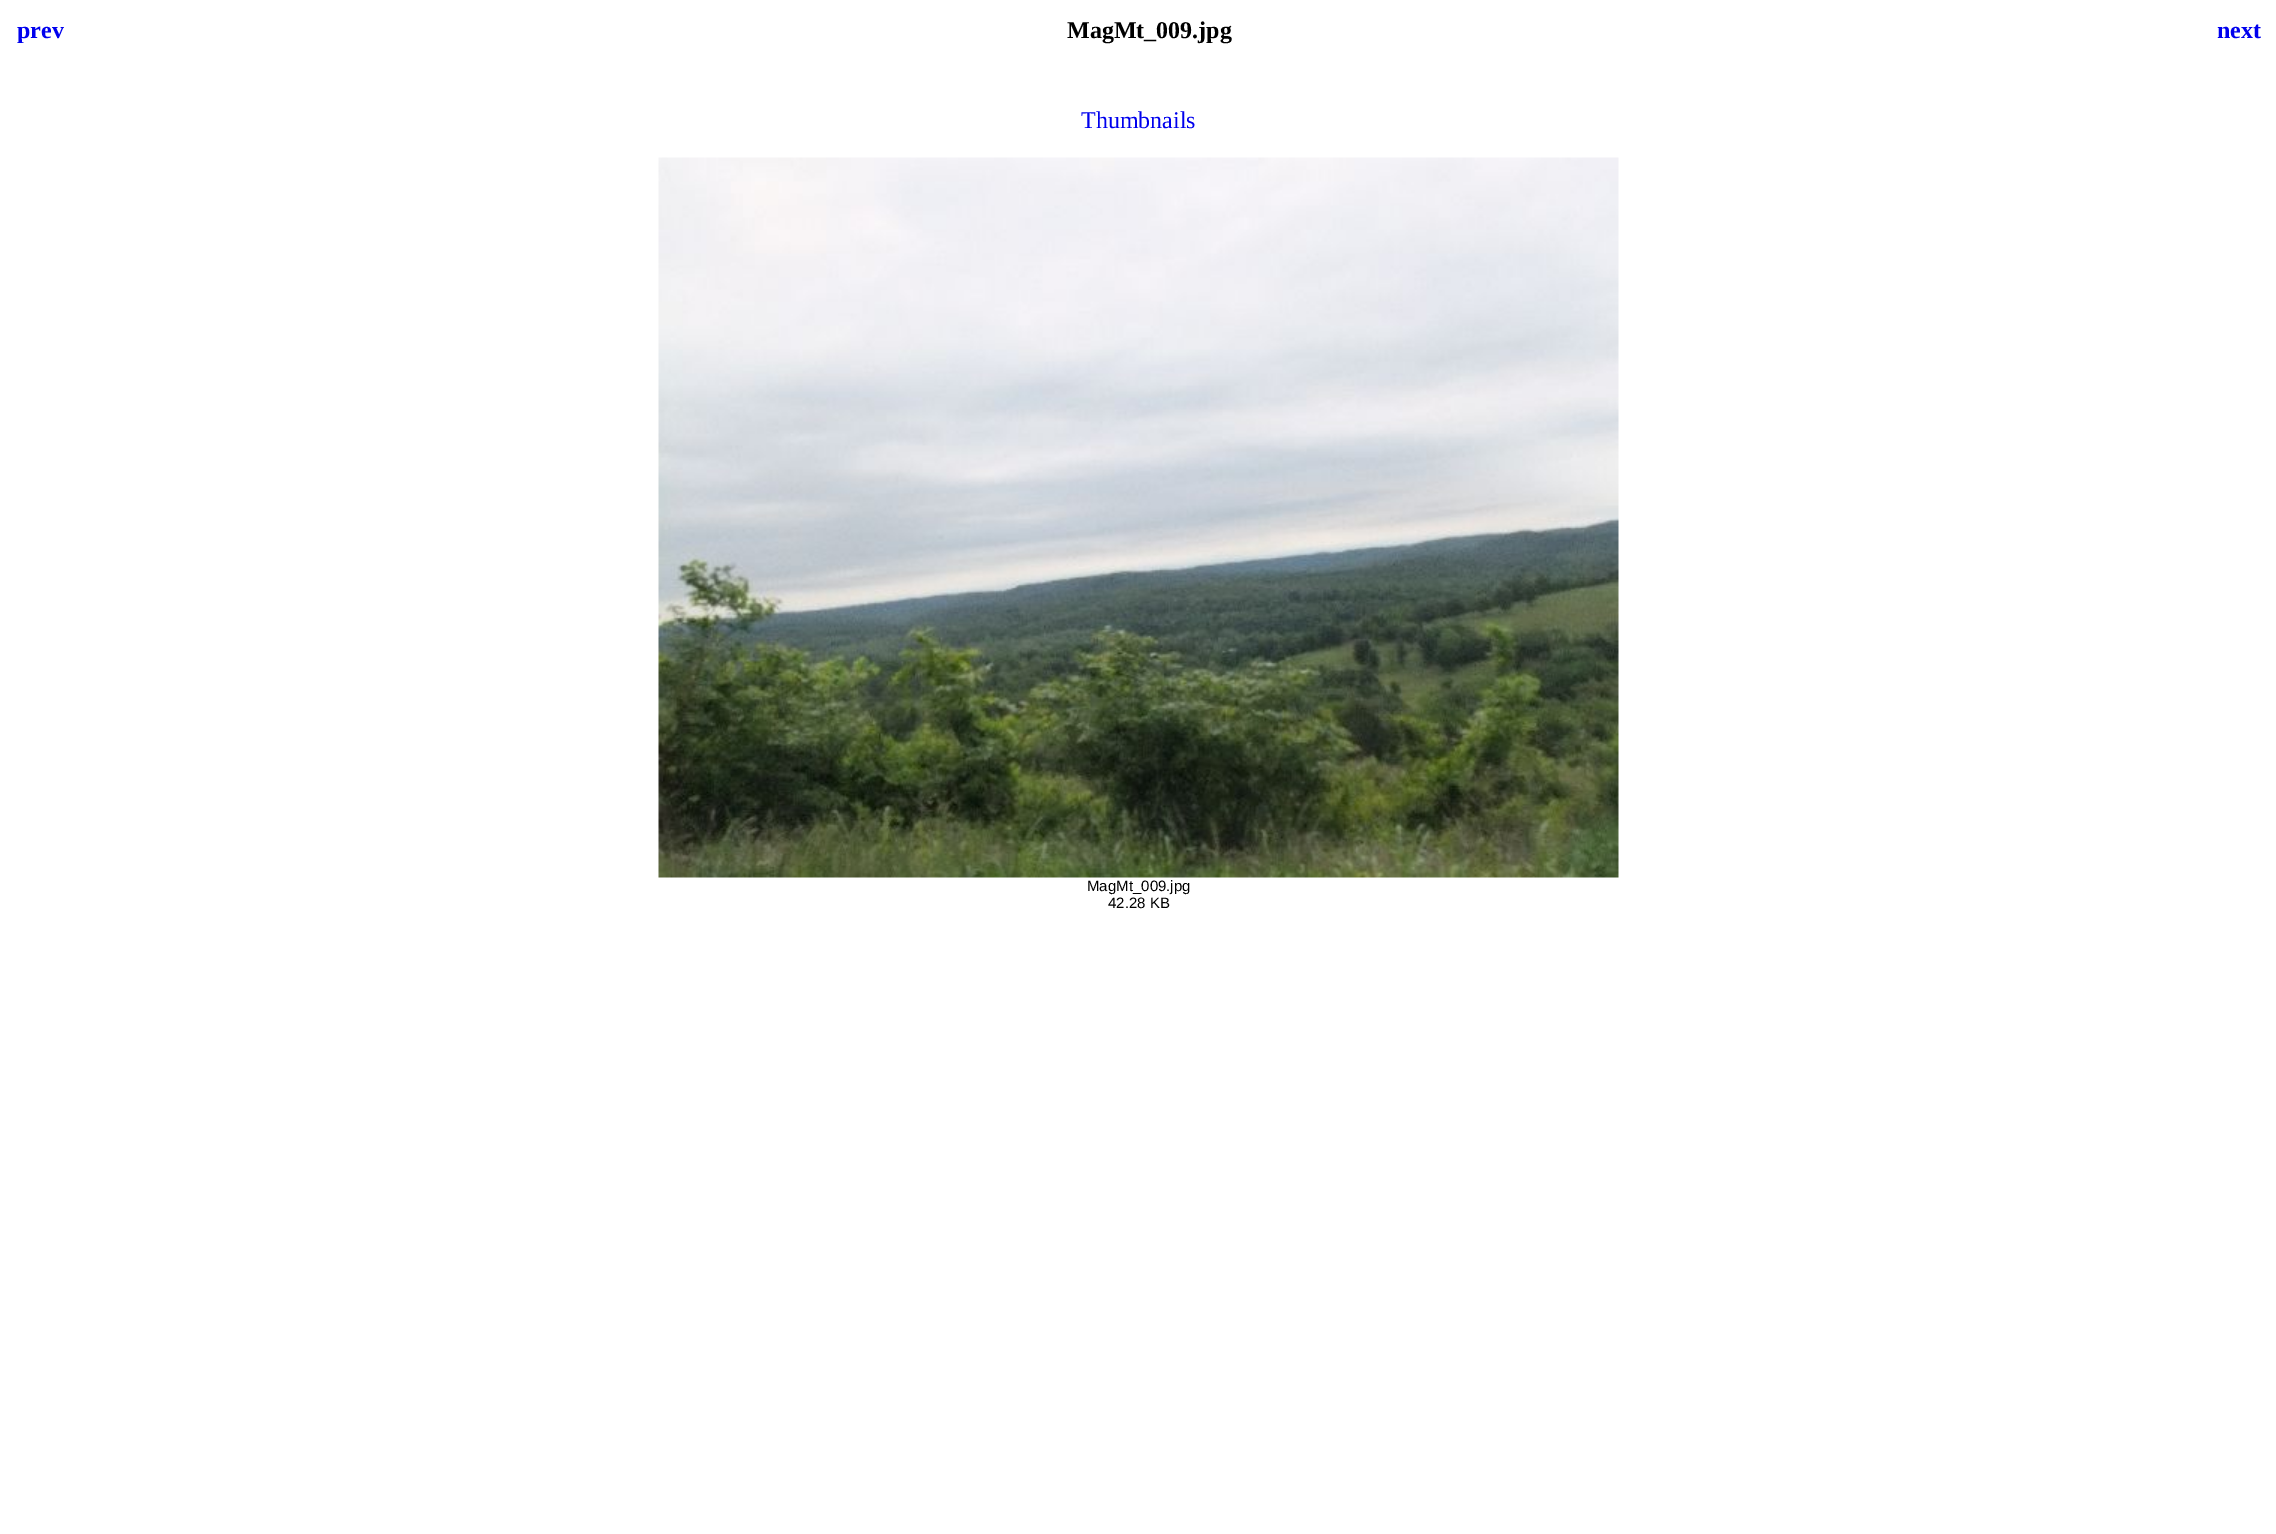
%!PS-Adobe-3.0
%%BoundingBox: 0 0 2276 1534
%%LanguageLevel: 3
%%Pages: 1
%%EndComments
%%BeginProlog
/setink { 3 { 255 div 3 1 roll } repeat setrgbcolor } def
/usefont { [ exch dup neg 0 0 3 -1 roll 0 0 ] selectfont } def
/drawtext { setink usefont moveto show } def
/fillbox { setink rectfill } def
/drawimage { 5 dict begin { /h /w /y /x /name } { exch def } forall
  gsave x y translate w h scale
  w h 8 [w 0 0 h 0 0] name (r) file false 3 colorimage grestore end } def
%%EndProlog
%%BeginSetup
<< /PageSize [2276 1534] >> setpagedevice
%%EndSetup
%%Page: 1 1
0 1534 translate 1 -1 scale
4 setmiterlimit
0 0 2276 1534 255 255 255 fillbox
(prev) 17 38 /LiberationSerif-Bold 24 0 0 238 drawtext
(MagMt_009.jpg) 1067 38 /LiberationSerif-Bold 24 0 0 0 drawtext
(next) 2217 38 /LiberationSerif-Bold 24 0 0 238 drawtext
(Thumbnails) 1081 128 /LiberationSerif-Regular 24 0 0 238 drawtext
(assets/img1.rgb) 658 157 961 721 drawimage
(MagMt_009.jpg) 1087 891 /LiberationSans-Regular 15 0 0 0 drawtext
(42.28 KB) 1108 908 /LiberationSans-Regular 15 0 0 0 drawtext
showpage
%%EOF
